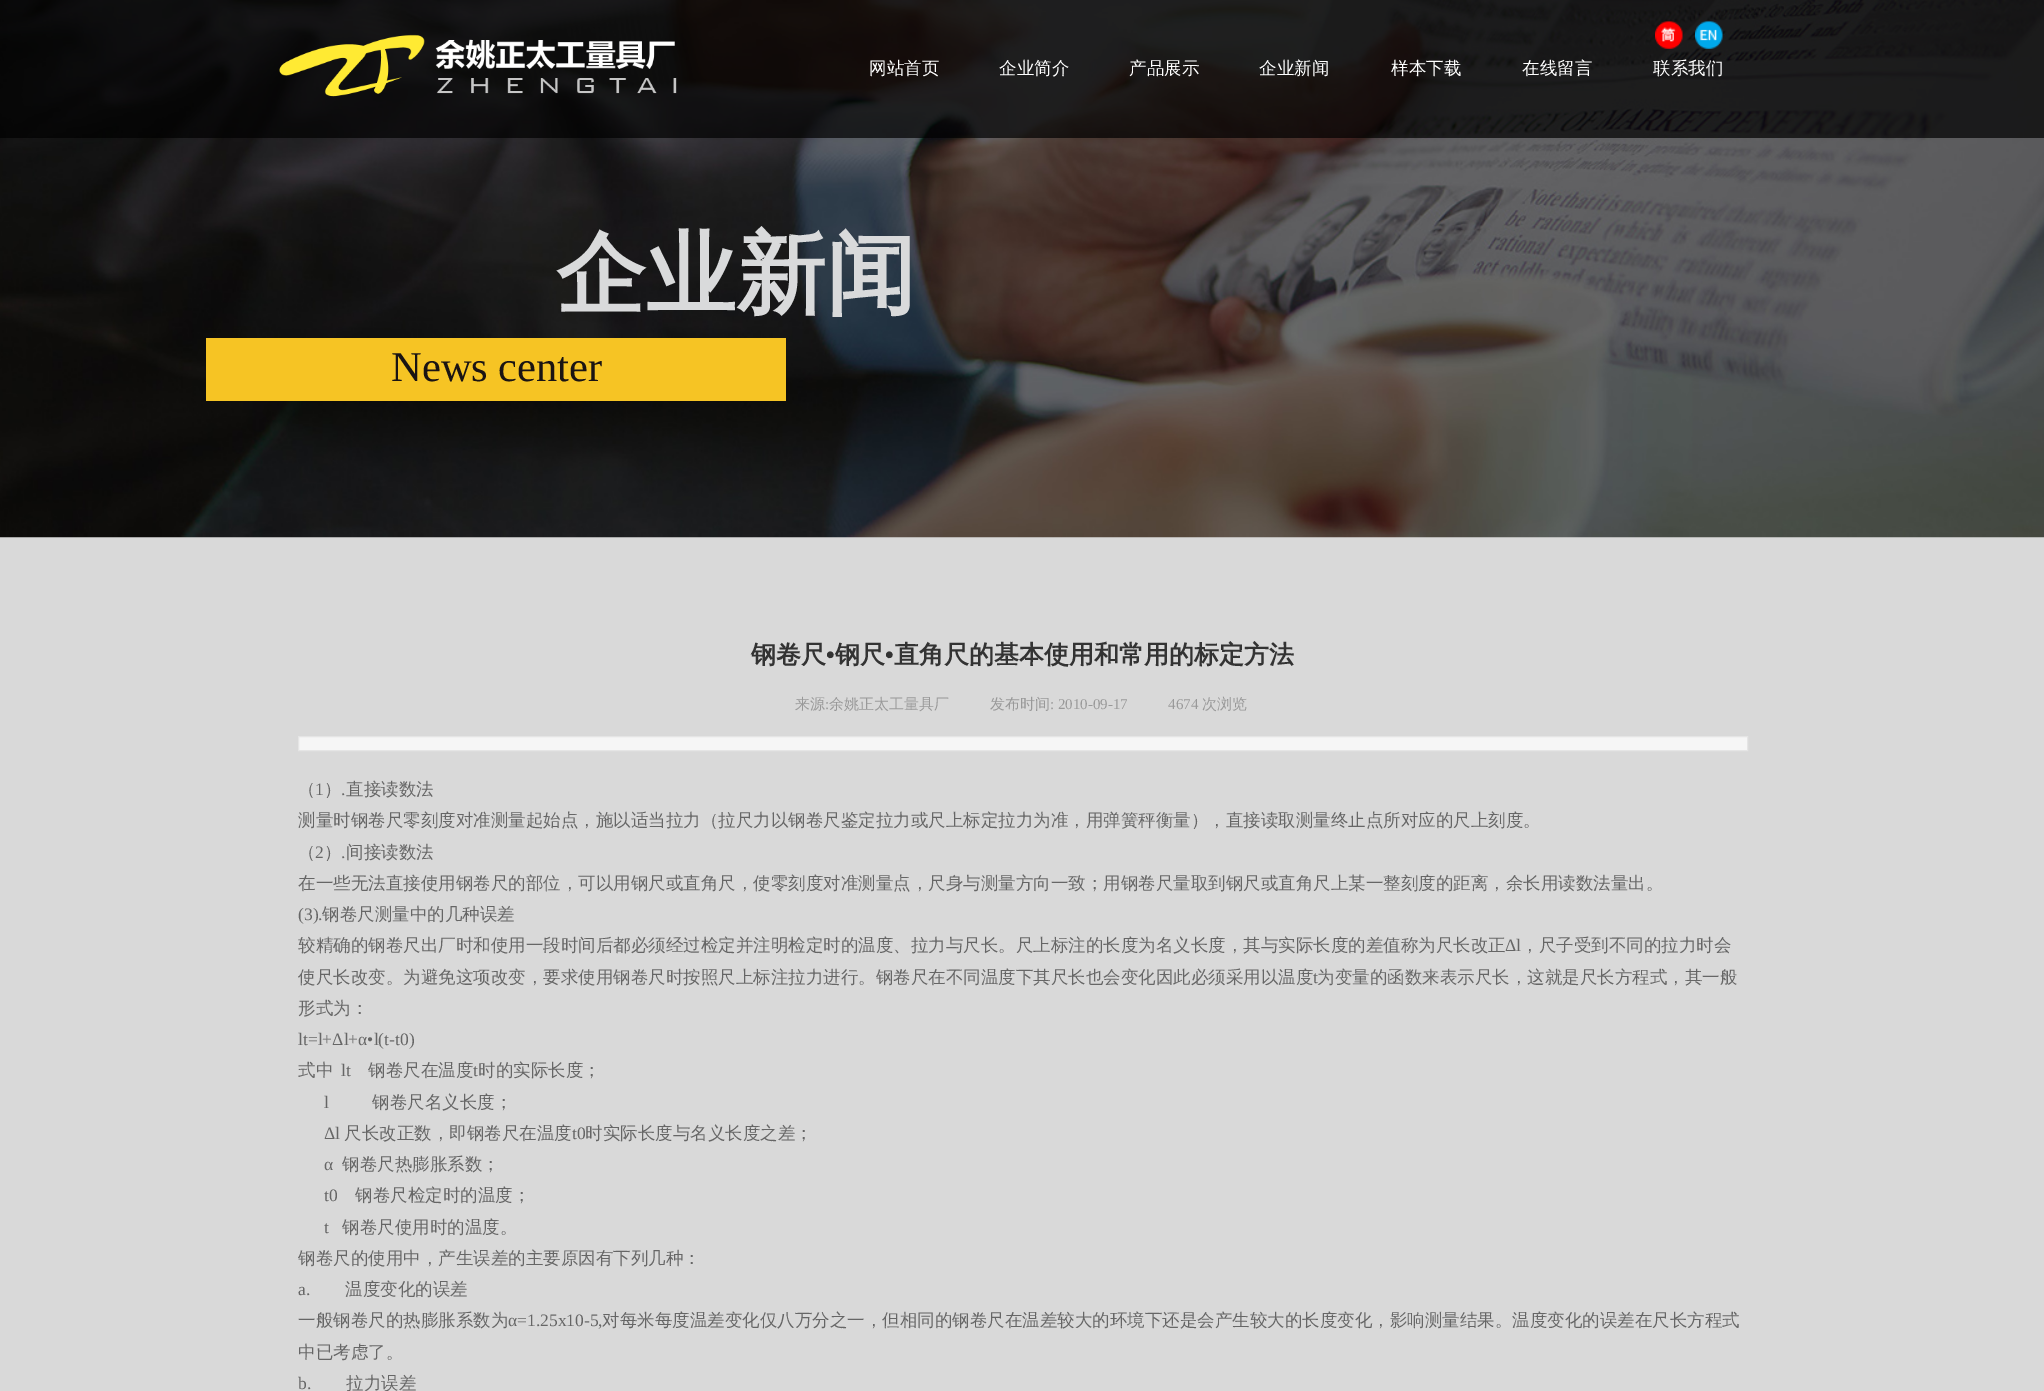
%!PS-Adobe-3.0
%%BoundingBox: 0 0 2044 1391
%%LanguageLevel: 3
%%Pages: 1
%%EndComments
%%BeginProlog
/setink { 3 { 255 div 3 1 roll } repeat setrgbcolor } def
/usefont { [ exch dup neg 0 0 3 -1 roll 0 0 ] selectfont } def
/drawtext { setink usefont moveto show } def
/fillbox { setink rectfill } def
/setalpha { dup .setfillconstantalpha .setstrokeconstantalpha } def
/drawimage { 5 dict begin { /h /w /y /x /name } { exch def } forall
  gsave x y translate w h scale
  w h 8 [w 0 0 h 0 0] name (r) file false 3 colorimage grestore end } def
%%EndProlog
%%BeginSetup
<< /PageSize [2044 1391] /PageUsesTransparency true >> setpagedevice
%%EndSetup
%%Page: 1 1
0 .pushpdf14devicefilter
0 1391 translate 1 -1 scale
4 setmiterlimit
0 0 2044 1391 217 217 217 fillbox
(assets/img1.rgb) 0 0 2044 538 drawimage
0.7 setalpha
0 0 2044 138 0 0 0 fillbox
1 setalpha
(assets/img2.rgb) 1655 21 28 28 drawimage
(assets/img3.rgb) 1695 21 28 28 drawimage
(assets/img4.rgb) 279 34 398 63 drawimage
(网站首页) 869 74 /WenQuanYiZenHei-Medium 17.5 255 255 255 drawtext
(企业简介) 999 74 /WenQuanYiZenHei-Medium 17.5 255 255 255 drawtext
(产品展示) 1129 74 /WenQuanYiZenHei-Medium 17.5 255 255 255 drawtext
(企业新闻) 1259 74 /WenQuanYiZenHei-Medium 17.5 255 255 255 drawtext
(样本下载) 1391 74 /WenQuanYiZenHei-Medium 17.5 255 255 255 drawtext
(在线留言) 1522 74 /WenQuanYiZenHei-Medium 17.5 255 255 255 drawtext
(联系我们) 1653 74 /WenQuanYiZenHei-Medium 17.5 255 255 255 drawtext
(企业新闻) 556 305 /WenQuanYiZenHei-Bold 90 217 218 219 drawtext
206 338 580 63 246 196 36 fillbox
(News center) 391 381 /LiberationSerif-Regular 42.5 26 20 19 drawtext
(钢卷尺) 751 663 /WenQuanYiZenHei-Bold 25 51 51 51 drawtext
(•) 826 663 /LiberationSerif-Bold 25 51 51 51 drawtext
(钢尺) 835 663 /WenQuanYiZenHei-Bold 25 51 51 51 drawtext
(•) 885 663 /LiberationSerif-Bold 25 51 51 51 drawtext
(直角尺的基本使用和常用的标定方法) 894 663 /WenQuanYiZenHei-Bold 25 51 51 51 drawtext
(来源) 795 709 /WenQuanYiZenHei-Medium 15 153 153 153 drawtext
(:) 825 709 /LiberationSerif-Regular 15 153 153 153 drawtext
(余姚正太工量具厂) 829 709 /WenQuanYiZenHei-Medium 15 153 153 153 drawtext
(发布时间) 990 709 /WenQuanYiZenHei-Medium 15 153 153 153 drawtext
(: 2010-09-17) 1050 709 /LiberationSerif-Regular 15 153 153 153 drawtext
(4674) 1168 709 /LiberationSerif-Regular 15 153 153 153 drawtext
(次浏览) 1202 709 /WenQuanYiZenHei-Medium 15 153 153 153 drawtext
246 246 246 setink
298.5 736.5 moveto 1747.5 736.5 lineto 1747.5 750.5 lineto 298.5 750.5 lineto closepath gsave fill grestore
229 229 229 setink
stroke
(（) 298 795 /WenQuanYiZenHei-Medium 17.5 102 102 102 drawtext
(1) 315 795 /LiberationSerif-Regular 17.5 102 102 102 drawtext
(）) 324 795 /WenQuanYiZenHei-Medium 17.5 102 102 102 drawtext
(.) 341 795 /LiberationSerif-Regular 17.5 102 102 102 drawtext
(直接读数法) 346 795 /WenQuanYiZenHei-Medium 17.5 102 102 102 drawtext
(测量时钢卷尺零刻度对准测量起始点，施以适当拉力（拉尺力以钢卷尺鉴定拉力或尺上标定拉力为准，用弹簧秤衡量），直接读取测量终止点所对应的尺上刻度。) 298 826 /WenQuanYiZenHei-Medium 17.5 102 102 102 drawtext
(（) 298 858 /WenQuanYiZenHei-Medium 17.5 102 102 102 drawtext
(2) 315 858 /LiberationSerif-Regular 17.5 102 102 102 drawtext
(）) 324 858 /WenQuanYiZenHei-Medium 17.5 102 102 102 drawtext
(.) 341 858 /LiberationSerif-Regular 17.5 102 102 102 drawtext
(间接读数法) 346 858 /WenQuanYiZenHei-Medium 17.5 102 102 102 drawtext
(在一些无法直接使用钢卷尺的部位，可以用钢尺或直角尺，使零刻度对准测量点，尺身与测量方向一致；用钢卷尺量取到钢尺或直角尺上某一整刻度的距离，余长用读数法量出。) 298 889 /WenQuanYiZenHei-Medium 17.5 102 102 102 drawtext
(\(3\).) 298 920 /LiberationSerif-Regular 17.5 102 102 102 drawtext
(钢卷尺测量中的几种误差) 322 920 /WenQuanYiZenHei-Medium 17.5 102 102 102 drawtext
(较精确的钢卷尺出厂时和使用一段时间后都必须经过检定并注明检定时的温度、拉力与尺长。尺上标注的长度为名义长度，其与实际长度的差值称为尺长改正) 298 951 /WenQuanYiZenHei-Medium 17.5 102 102 102 drawtext
(Δl) 1505 951 /LiberationSerif-Regular 17.5 102 102 102 drawtext
(，尺子受到不同的拉力时会) 1521 951 /WenQuanYiZenHei-Medium 17.5 102 102 102 drawtext
(使尺长改变。为避免这项改变，要求使用钢卷尺时按照尺上标注拉力进行。钢卷尺在不同温度下其尺长也会变化因此必须采用以温度) 298 983 /WenQuanYiZenHei-Medium 17.5 102 102 102 drawtext
(t) 1313 983 /LiberationSerif-Regular 17.5 102 102 102 drawtext
(为变量的函数来表示尺长，这就是尺长方程式，其一般) 1317 983 /WenQuanYiZenHei-Medium 17.5 102 102 102 drawtext
(形式为：) 298 1014 /WenQuanYiZenHei-Medium 17.5 102 102 102 drawtext
(lt=l+Δl+α•l\(t-t0\)) 298 1045 /LiberationSerif-Regular 17.5 102 102 102 drawtext
(式中) 298 1076 /WenQuanYiZenHei-Medium 17.5 102 102 102 drawtext
(lt) 341 1076 /LiberationSerif-Regular 17.5 102 102 102 drawtext
(钢卷尺在温度) 368 1076 /WenQuanYiZenHei-Medium 17.5 102 102 102 drawtext
(t) 473 1076 /LiberationSerif-Regular 17.5 102 102 102 drawtext
(时的实际长度；) 478 1076 /WenQuanYiZenHei-Medium 17.5 102 102 102 drawtext
(l) 324 1108 /LiberationSerif-Regular 17.5 102 102 102 drawtext
(钢卷尺名义长度；) 372 1108 /WenQuanYiZenHei-Medium 17.5 102 102 102 drawtext
(Δl) 324 1139 /LiberationSerif-Regular 17.5 102 102 102 drawtext
(尺长改正数，即钢卷尺在温度) 344 1139 /WenQuanYiZenHei-Medium 17.5 102 102 102 drawtext
(t0) 572 1139 /LiberationSerif-Regular 17.5 102 102 102 drawtext
(时实际长度与名义长度之差；) 585 1139 /WenQuanYiZenHei-Medium 17.5 102 102 102 drawtext
(α) 324 1170 /LiberationSerif-Regular 17.5 102 102 102 drawtext
(钢卷尺热膨胀系数；) 342 1170 /WenQuanYiZenHei-Medium 17.5 102 102 102 drawtext
(t0) 324 1201 /LiberationSerif-Regular 17.5 102 102 102 drawtext
(钢卷尺检定时的温度；) 355 1201 /WenQuanYiZenHei-Medium 17.5 102 102 102 drawtext
(t) 324 1233 /LiberationSerif-Regular 17.5 102 102 102 drawtext
(钢卷尺使用时的温度。) 342 1233 /WenQuanYiZenHei-Medium 17.5 102 102 102 drawtext
(钢卷尺的使用中，产生误差的主要原因有下列几种：) 298 1264 /WenQuanYiZenHei-Medium 17.5 102 102 102 drawtext
(a.) 298 1295 /LiberationSerif-Regular 17.5 102 102 102 drawtext
(温度变化的误差) 345 1295 /WenQuanYiZenHei-Medium 17.5 102 102 102 drawtext
(一般钢卷尺的热膨胀系数为) 298 1326 /WenQuanYiZenHei-Medium 17.5 102 102 102 drawtext
(α=1.25x10-5,) 508 1326 /LiberationSerif-Regular 17.5 102 102 102 drawtext
(对每米每度温差变化仅八万分之一，但相同的钢卷尺在温差较大的环境下还是会产生较大的长度变化，影响测量结果。温度变化的误差在尺长方程式) 602 1326 /WenQuanYiZenHei-Medium 17.5 102 102 102 drawtext
(中已考虑了。) 298 1358 /WenQuanYiZenHei-Medium 17.5 102 102 102 drawtext
(b.) 298 1389 /LiberationSerif-Regular 17.5 102 102 102 drawtext
(拉力误差) 346 1389 /WenQuanYiZenHei-Medium 17.5 102 102 102 drawtext
.poppdf14devicefilter showpage
%%EOF
